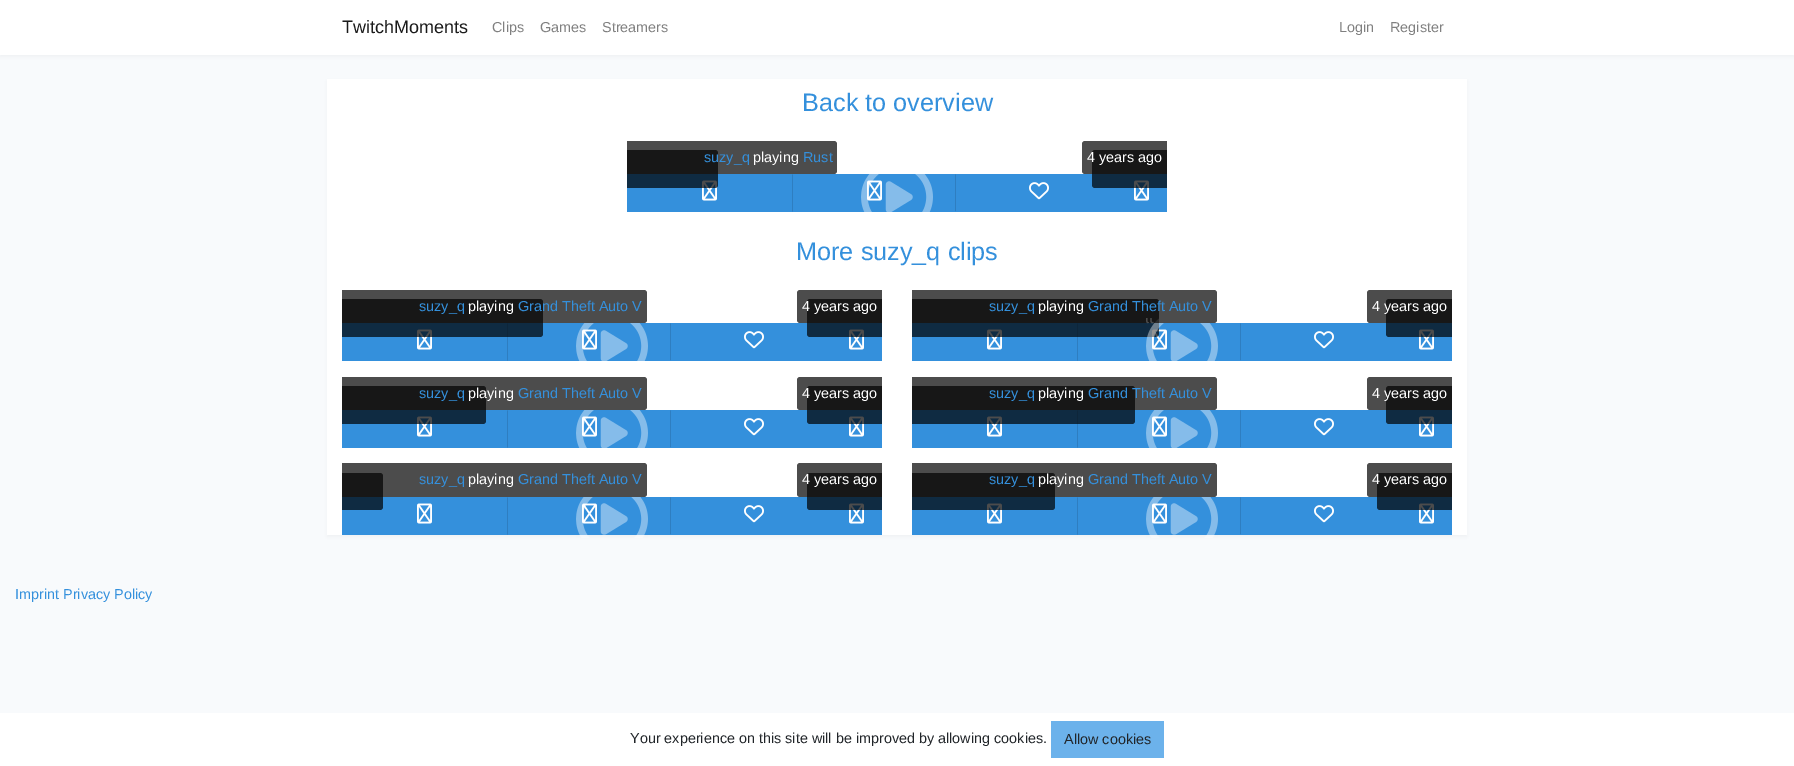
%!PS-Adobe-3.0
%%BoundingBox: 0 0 1794 766
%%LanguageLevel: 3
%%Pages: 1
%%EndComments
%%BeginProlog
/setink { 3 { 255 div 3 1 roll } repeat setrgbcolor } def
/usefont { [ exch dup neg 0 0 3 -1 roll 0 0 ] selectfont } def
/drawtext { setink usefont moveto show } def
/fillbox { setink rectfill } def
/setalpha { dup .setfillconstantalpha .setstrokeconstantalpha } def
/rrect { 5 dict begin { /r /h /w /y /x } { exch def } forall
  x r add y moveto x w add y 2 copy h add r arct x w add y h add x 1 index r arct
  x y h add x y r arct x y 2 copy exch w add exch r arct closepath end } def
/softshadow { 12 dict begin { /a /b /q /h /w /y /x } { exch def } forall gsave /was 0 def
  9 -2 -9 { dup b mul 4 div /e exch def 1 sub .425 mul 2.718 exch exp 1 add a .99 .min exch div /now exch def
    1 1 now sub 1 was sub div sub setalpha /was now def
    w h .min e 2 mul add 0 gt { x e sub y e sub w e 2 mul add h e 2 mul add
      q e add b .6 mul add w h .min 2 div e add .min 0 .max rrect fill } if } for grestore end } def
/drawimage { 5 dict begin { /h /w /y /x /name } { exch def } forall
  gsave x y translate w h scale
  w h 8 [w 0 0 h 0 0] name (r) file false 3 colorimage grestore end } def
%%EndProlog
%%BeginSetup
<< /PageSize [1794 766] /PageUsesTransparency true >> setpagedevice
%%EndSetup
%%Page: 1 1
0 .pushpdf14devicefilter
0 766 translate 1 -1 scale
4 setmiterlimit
0 0 1794 766 248 250 252 fillbox
0 0 0 setink
0 2 1794 55 0 2 0.04 softshadow
0 0 1794 55 255 255 255 fillbox
(TwitchMoments) 342 33 /LiberationSans-Regular 18 26 26 26 drawtext
(Clips) 492 32 /LiberationSans-Regular 14.4 128 128 128 drawtext
(Games) 540 32 /LiberationSans-Regular 14.4 128 128 128 drawtext
(Streamers) 602 32 /LiberationSans-Regular 14.4 128 128 128 drawtext
(Login) 1339 32 /LiberationSans-Regular 14.4 128 128 128 drawtext
(Register) 1390 32 /LiberationSans-Regular 14.4 128 128 128 drawtext
0 0 0 setink
327 81 1140 456 0 2 0.04 softshadow
327 79 1140 456 255 255 255 fillbox
(Back to overview) 802 111 /LiberationSans-Regular 25.25 52 144 220 drawtext
627 174 540 38 52 144 220 fillbox
(assets/img2.rgb) 702 180 15 21 drawimage
0.7 setalpha
0 0 0 setink
627 150 moveto 715 150 lineto 716.5 150 718 151.5 718 153 curveto 718 185 lineto 718 186.5 716.5 188 715 188 curveto 627 188 lineto closepath fill
1 setalpha
(assets/img2.rgb) 1134 180 15 21 drawimage
0.7 setalpha
1095 150 moveto 1167 150 lineto 1167 188 lineto 1095 188 lineto 1093.5 188 1092 186.5 1092 185 curveto 1092 153 lineto 1092 151.5 1093.5 150 1095 150 curveto closepath fill
627 141 moveto 834 141 lineto 835.5 141 837 142.5 837 144 curveto 837 171 lineto 837 172.5 835.5 174 834 174 curveto 627 174 lineto closepath fill
1 setalpha
(suzy_q) 704 162 /LiberationSans-Regular 14.4 52 144 220 drawtext
(playing) 753 162 /LiberationSans-Regular 14.4 255 255 255 drawtext
(Rust) 803 162 /LiberationSans-Regular 14.4 52 144 220 drawtext
0.7 setalpha
0 0 0 setink
1085 141 moveto 1167 141 lineto 1167 174 lineto 1085 174 lineto 1083.5 174 1082 172.5 1082 171 curveto 1082 144 lineto 1082 142.5 1083.5 141 1085 141 curveto closepath fill
1 setalpha
(4 years ago) 1087 162 /LiberationSans-Regular 14.4 255 255 255 drawtext
46 126 193 setink
956 174 moveto 956 212 lineto 955 211 lineto 955 175 lineto closepath fill
52 144 220 setink
956 212 moveto 792 212 lineto 793 211 lineto 955 211 lineto closepath fill
(assets/img2.rgb) 867 180 15 21 drawimage
(assets/img1.rgb) 861 174 72 38 drawimage
46 126 193 setink
792 212 moveto 792 174 lineto 793 175 lineto 793 211 lineto closepath fill
(assets/img3.rgb) 1029 182 20 18 drawimage
(More suzy_q clips) 796 260 /LiberationSans-Regular 25.25 52 144 220 drawtext
342 323 540 38 52 144 220 fillbox
(assets/img2.rgb) 417 329 15 21 drawimage
46 126 193 setink
671 323 moveto 671 361 lineto 670 360 lineto 670 324 lineto closepath fill
52 144 220 setink
671 361 moveto 507 361 lineto 508 360 lineto 670 360 lineto closepath fill
46 126 193 setink
507 361 moveto 507 323 lineto 508 324 lineto 508 360 lineto closepath fill
0.7 setalpha
0 0 0 setink
342 299 moveto 540 299 lineto 541.5 299 543 300.5 543 302 curveto 543 334 lineto 543 335.5 541.5 337 540 337 curveto 342 337 lineto closepath fill
1 setalpha
(assets/img2.rgb) 849 329 15 21 drawimage
0.7 setalpha
810 299 moveto 882 299 lineto 882 337 lineto 810 337 lineto 808.5 337 807 335.5 807 334 curveto 807 302 lineto 807 300.5 808.5 299 810 299 curveto closepath fill
342 290 moveto 644 290 lineto 645.5 290 647 291.5 647 293 curveto 647 320 lineto 647 321.5 645.5 323 644 323 curveto 342 323 lineto closepath fill
1 setalpha
(suzy_q) 419 311 /LiberationSans-Regular 14.4 52 144 220 drawtext
(playing) 468 311 /LiberationSans-Regular 14.4 255 255 255 drawtext
(Grand Theft Auto V) 518 311 /LiberationSans-Regular 14.4 52 144 220 drawtext
0.7 setalpha
0 0 0 setink
800 290 moveto 882 290 lineto 882 323 lineto 800 323 lineto 798.5 323 797 321.5 797 320 curveto 797 293 lineto 797 291.5 798.5 290 800 290 curveto closepath fill
1 setalpha
(4 years ago) 802 311 /LiberationSans-Regular 14.4 255 255 255 drawtext
(assets/img2.rgb) 582 329 15 21 drawimage
(assets/img1.rgb) 576 323 72 38 drawimage
(assets/img3.rgb) 744 331 20 18 drawimage
912 323 540 38 52 144 220 fillbox
(assets/img2.rgb) 987 329 15 21 drawimage
46 126 193 setink
1241 323 moveto 1241 361 lineto 1240 360 lineto 1240 324 lineto closepath fill
52 144 220 setink
1241 361 moveto 1077 361 lineto 1078 360 lineto 1240 360 lineto closepath fill
46 126 193 setink
1077 361 moveto 1077 323 lineto 1078 324 lineto 1078 360 lineto closepath fill
(assets/img2.rgb) 1152 329 15 21 drawimage
0.7 setalpha
0 0 0 setink
912 299 moveto 1156 299 lineto 1157.5 299 1159 300.5 1159 302 curveto 1159 334 lineto 1159 335.5 1157.5 337 1156 337 curveto 912 337 lineto closepath fill
1 setalpha
(assets/img2.rgb) 1419 329 15 21 drawimage
0.7 setalpha
1389 299 moveto 1452 299 lineto 1452 337 lineto 1389 337 lineto 1387.5 337 1386 335.5 1386 334 curveto 1386 302 lineto 1386 300.5 1387.5 299 1389 299 curveto closepath fill
1 setalpha
(assets/img4.rgb) 1146 318 72 43 drawimage
0.7 setalpha
912 290 moveto 1214 290 lineto 1215.5 290 1217 291.5 1217 293 curveto 1217 320 lineto 1217 321.5 1215.5 323 1214 323 curveto 912 323 lineto closepath fill
1 setalpha
(suzy_q) 989 311 /LiberationSans-Regular 14.4 52 144 220 drawtext
(playing) 1038 311 /LiberationSans-Regular 14.4 255 255 255 drawtext
(Grand Theft Auto V) 1088 311 /LiberationSans-Regular 14.4 52 144 220 drawtext
0.7 setalpha
0 0 0 setink
1370 290 moveto 1452 290 lineto 1452 323 lineto 1370 323 lineto 1368.5 323 1367 321.5 1367 320 curveto 1367 293 lineto 1367 291.5 1368.5 290 1370 290 curveto closepath fill
1 setalpha
(4 years ago) 1372 311 /LiberationSans-Regular 14.4 255 255 255 drawtext
(assets/img3.rgb) 1314 331 20 18 drawimage
342 410 540 38 52 144 220 fillbox
(assets/img2.rgb) 417 416 15 21 drawimage
0.7 setalpha
0 0 0 setink
342 386 moveto 483 386 lineto 484.5 386 486 387.5 486 389 curveto 486 421 lineto 486 422.5 484.5 424 483 424 curveto 342 424 lineto closepath fill
1 setalpha
(assets/img2.rgb) 849 416 15 21 drawimage
0.7 setalpha
810 386 moveto 882 386 lineto 882 424 lineto 810 424 lineto 808.5 424 807 422.5 807 421 curveto 807 389 lineto 807 387.5 808.5 386 810 386 curveto closepath fill
342 377 moveto 644 377 lineto 645.5 377 647 378.5 647 380 curveto 647 407 lineto 647 408.5 645.5 410 644 410 curveto 342 410 lineto closepath fill
1 setalpha
(suzy_q) 419 398 /LiberationSans-Regular 14.4 52 144 220 drawtext
(playing) 468 398 /LiberationSans-Regular 14.4 255 255 255 drawtext
(Grand Theft Auto V) 518 398 /LiberationSans-Regular 14.4 52 144 220 drawtext
0.7 setalpha
0 0 0 setink
800 377 moveto 882 377 lineto 882 410 lineto 800 410 lineto 798.5 410 797 408.5 797 407 curveto 797 380 lineto 797 378.5 798.5 377 800 377 curveto closepath fill
1 setalpha
(4 years ago) 802 398 /LiberationSans-Regular 14.4 255 255 255 drawtext
46 126 193 setink
671 410 moveto 671 448 lineto 670 447 lineto 670 411 lineto closepath fill
52 144 220 setink
671 448 moveto 507 448 lineto 508 447 lineto 670 447 lineto closepath fill
(assets/img2.rgb) 582 416 15 21 drawimage
(assets/img1.rgb) 576 410 72 38 drawimage
46 126 193 setink
507 448 moveto 507 410 lineto 508 411 lineto 508 447 lineto closepath fill
(assets/img3.rgb) 744 418 20 18 drawimage
912 410 540 38 52 144 220 fillbox
(assets/img2.rgb) 987 416 15 21 drawimage
46 126 193 setink
1241 410 moveto 1241 448 lineto 1240 447 lineto 1240 411 lineto closepath fill
52 144 220 setink
1241 448 moveto 1077 448 lineto 1078 447 lineto 1240 447 lineto closepath fill
46 126 193 setink
1077 448 moveto 1077 410 lineto 1078 411 lineto 1078 447 lineto closepath fill
0.7 setalpha
0 0 0 setink
912 386 moveto 1132 386 lineto 1133.5 386 1135 387.5 1135 389 curveto 1135 421 lineto 1135 422.5 1133.5 424 1132 424 curveto 912 424 lineto closepath fill
1 setalpha
(assets/img2.rgb) 1419 416 15 21 drawimage
0.7 setalpha
1389 386 moveto 1452 386 lineto 1452 424 lineto 1389 424 lineto 1387.5 424 1386 422.5 1386 421 curveto 1386 389 lineto 1386 387.5 1387.5 386 1389 386 curveto closepath fill
912 377 moveto 1214 377 lineto 1215.5 377 1217 378.5 1217 380 curveto 1217 407 lineto 1217 408.5 1215.5 410 1214 410 curveto 912 410 lineto closepath fill
1 setalpha
(suzy_q) 989 398 /LiberationSans-Regular 14.4 52 144 220 drawtext
(playing) 1038 398 /LiberationSans-Regular 14.4 255 255 255 drawtext
(Grand Theft Auto V) 1088 398 /LiberationSans-Regular 14.4 52 144 220 drawtext
0.7 setalpha
0 0 0 setink
1370 377 moveto 1452 377 lineto 1452 410 lineto 1370 410 lineto 1368.5 410 1367 408.5 1367 407 curveto 1367 380 lineto 1367 378.5 1368.5 377 1370 377 curveto closepath fill
1 setalpha
(4 years ago) 1372 398 /LiberationSans-Regular 14.4 255 255 255 drawtext
(assets/img2.rgb) 1152 416 15 21 drawimage
(assets/img1.rgb) 1146 410 72 38 drawimage
(assets/img3.rgb) 1314 418 20 18 drawimage
342 497 540 38 52 144 220 fillbox
0.7 setalpha
0 0 0 setink
342 473 moveto 380 473 lineto 381.5 473 383 474.5 383 476 curveto 383 507 lineto 383 508.5 381.5 510 380 510 curveto 342 510 lineto closepath fill
1 setalpha
(assets/img2.rgb) 849 503 15 21 drawimage
0.7 setalpha
810 473 moveto 882 473 lineto 882 510 lineto 810 510 lineto 808.5 510 807 508.5 807 507 curveto 807 476 lineto 807 474.5 808.5 473 810 473 curveto closepath fill
342 463 moveto 644 463 lineto 645.5 463 647 464.5 647 466 curveto 647 494 lineto 647 495.5 645.5 497 644 497 curveto 342 497 lineto closepath fill
1 setalpha
(suzy_q) 419 484 /LiberationSans-Regular 14.4 52 144 220 drawtext
(playing) 468 484 /LiberationSans-Regular 14.4 255 255 255 drawtext
(Grand Theft Auto V) 518 484 /LiberationSans-Regular 14.4 52 144 220 drawtext
0.7 setalpha
0 0 0 setink
800 463 moveto 882 463 lineto 882 497 lineto 800 497 lineto 798.5 497 797 495.5 797 494 curveto 797 466 lineto 797 464.5 798.5 463 800 463 curveto closepath fill
1 setalpha
(4 years ago) 802 484 /LiberationSans-Regular 14.4 255 255 255 drawtext
46 126 193 setink
671 497 moveto 671 535 lineto 670 534 lineto 670 498 lineto closepath fill
52 144 220 setink
671 535 moveto 507 535 lineto 508 534 lineto 670 534 lineto closepath fill
(assets/img2.rgb) 582 503 15 21 drawimage
(assets/img5.rgb) 576 497 72 41 drawimage
(assets/img2.rgb) 417 503 15 21 drawimage
46 126 193 setink
507 535 moveto 507 497 lineto 508 498 lineto 508 534 lineto closepath fill
(assets/img3.rgb) 744 505 20 18 drawimage
912 497 540 38 52 144 220 fillbox
(assets/img2.rgb) 987 503 15 21 drawimage
0.7 setalpha
0 0 0 setink
912 473 moveto 1052 473 lineto 1053.5 473 1055 474.5 1055 476 curveto 1055 507 lineto 1055 508.5 1053.5 510 1052 510 curveto 912 510 lineto closepath fill
1 setalpha
(assets/img2.rgb) 1419 503 15 21 drawimage
0.7 setalpha
1380 473 moveto 1452 473 lineto 1452 510 lineto 1380 510 lineto 1378.5 510 1377 508.5 1377 507 curveto 1377 476 lineto 1377 474.5 1378.5 473 1380 473 curveto closepath fill
912 463 moveto 1214 463 lineto 1215.5 463 1217 464.5 1217 466 curveto 1217 494 lineto 1217 495.5 1215.5 497 1214 497 curveto 912 497 lineto closepath fill
1 setalpha
(suzy_q) 989 484 /LiberationSans-Regular 14.4 52 144 220 drawtext
(playing) 1038 484 /LiberationSans-Regular 14.4 255 255 255 drawtext
(Grand Theft Auto V) 1088 484 /LiberationSans-Regular 14.4 52 144 220 drawtext
0.7 setalpha
0 0 0 setink
1370 463 moveto 1452 463 lineto 1452 497 lineto 1370 497 lineto 1368.5 497 1367 495.5 1367 494 curveto 1367 466 lineto 1367 464.5 1368.5 463 1370 463 curveto closepath fill
1 setalpha
(4 years ago) 1372 484 /LiberationSans-Regular 14.4 255 255 255 drawtext
46 126 193 setink
1241 497 moveto 1241 535 lineto 1240 534 lineto 1240 498 lineto closepath fill
52 144 220 setink
1241 535 moveto 1077 535 lineto 1078 534 lineto 1240 534 lineto closepath fill
(assets/img2.rgb) 1152 503 15 21 drawimage
(assets/img5.rgb) 1146 497 72 41 drawimage
46 126 193 setink
1077 535 moveto 1077 497 lineto 1078 498 lineto 1078 534 lineto closepath fill
(assets/img3.rgb) 1314 505 20 18 drawimage
(Imprint Privacy Policy) 15 599 /LiberationSans-Regular 14.4 52 144 220 drawtext
0 713 1794 53 255 255 255 fillbox
(Your experience on this site will be improved by allowing cookies.) 630 743 /LiberationSans-Regular 14.4 33 37 41 drawtext
1051 721 113 37 108 178 235 fillbox
(Allow cookies) 1064 744 /LiberationSans-Regular 14.4 33 37 41 drawtext
.poppdf14devicefilter showpage
%%EOF
